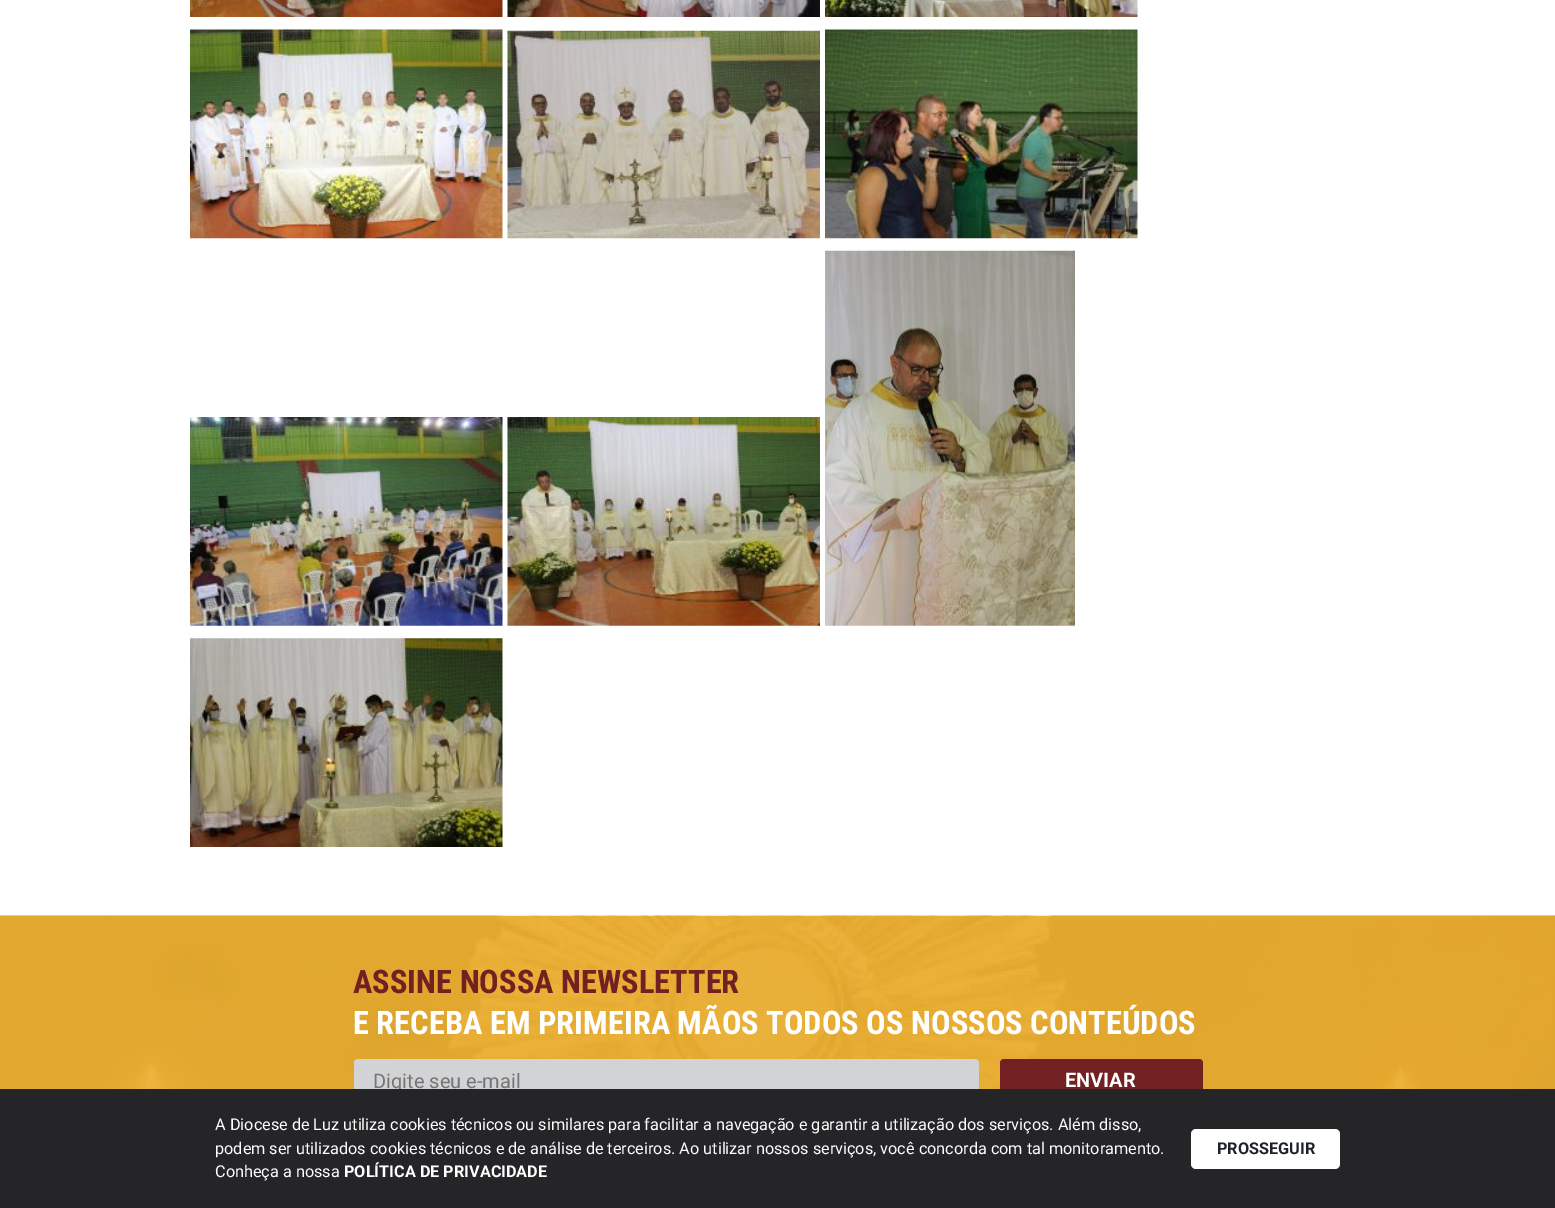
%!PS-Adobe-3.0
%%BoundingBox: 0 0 1555 1208
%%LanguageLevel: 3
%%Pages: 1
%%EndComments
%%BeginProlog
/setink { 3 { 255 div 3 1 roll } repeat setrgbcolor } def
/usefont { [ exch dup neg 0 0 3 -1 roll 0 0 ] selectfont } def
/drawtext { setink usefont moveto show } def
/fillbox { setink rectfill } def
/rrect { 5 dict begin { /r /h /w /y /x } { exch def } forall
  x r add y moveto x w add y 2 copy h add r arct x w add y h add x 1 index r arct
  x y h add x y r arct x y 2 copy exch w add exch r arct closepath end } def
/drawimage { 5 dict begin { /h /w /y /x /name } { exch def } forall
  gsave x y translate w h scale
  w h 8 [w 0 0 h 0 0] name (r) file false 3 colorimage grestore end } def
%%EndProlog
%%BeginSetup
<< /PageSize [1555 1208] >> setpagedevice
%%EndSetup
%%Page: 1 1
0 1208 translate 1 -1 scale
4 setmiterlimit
0 0 1555 1208 255 255 255 fillbox
(assets/img1.rgb) 190 0 313 17 drawimage
(assets/img2.rgb) 507 0 313 17 drawimage
(assets/img3.rgb) 825 0 313 17 drawimage
(assets/img4.rgb) 190 29 313 210 drawimage
(assets/img5.rgb) 507 30 313 209 drawimage
(assets/img6.rgb) 825 29 313 210 drawimage
(assets/img7.rgb) 190 417 313 209 drawimage
(assets/img8.rgb) 507 417 313 209 drawimage
(assets/img9.rgb) 825 250 250 376 drawimage
(assets/img10.rgb) 190 638 313 209 drawimage
(assets/img11.rgb) 0 915 1555 174 drawimage
(ASSINE NOSSA NEWSLETTER) 353 993 /RobotoCondensed-Bold 32.5 114 32 34 drawtext
(E RECEBA EM PRIMEIRA MÃOS TODOS OS NOSSOS CONTEÚDOS) 353 1034 /RobotoCondensed-Bold 32.5 255 255 255 drawtext
210 211 213 setink
354 1059 625 45 4 rrect fill
(Digite seu e-mail) 373 1088 /Roboto-Regular 20 117 117 117 drawtext
114 32 34 setink
1000 1059 203 45 4 rrect fill
(ENVIAR) 1065 1087 /Roboto-Bold 20 255 255 255 drawtext
0 1089 1555 119 37 37 40 fillbox
(A Diocese de Luz utiliza cookies técnicos ou similares para facilitar a navegação e garantir a utilização dos serviços. Além disso,) 215 1130 /Roboto-Regular 16.25 255 255 255 drawtext
(podem ser utilizados cookies técnicos e de análise de terceiros. Ao utilizar nossos serviços, você concorda com tal monitoramento.) 215 1154 /Roboto-Regular 16.25 255 255 255 drawtext
(Conheça a nossa) 215 1177 /Roboto-Regular 16.25 255 255 255 drawtext
(POLÍTICA DE PRIVACIDADE) 344 1177 /Roboto-Bold 16.25 255 255 255 drawtext
1191 1129 149 40 5 rrect fill
(PROSSEGUIR) 1217 1154 /Roboto-Bold 16.25 29 33 41 drawtext
showpage
%%EOF
